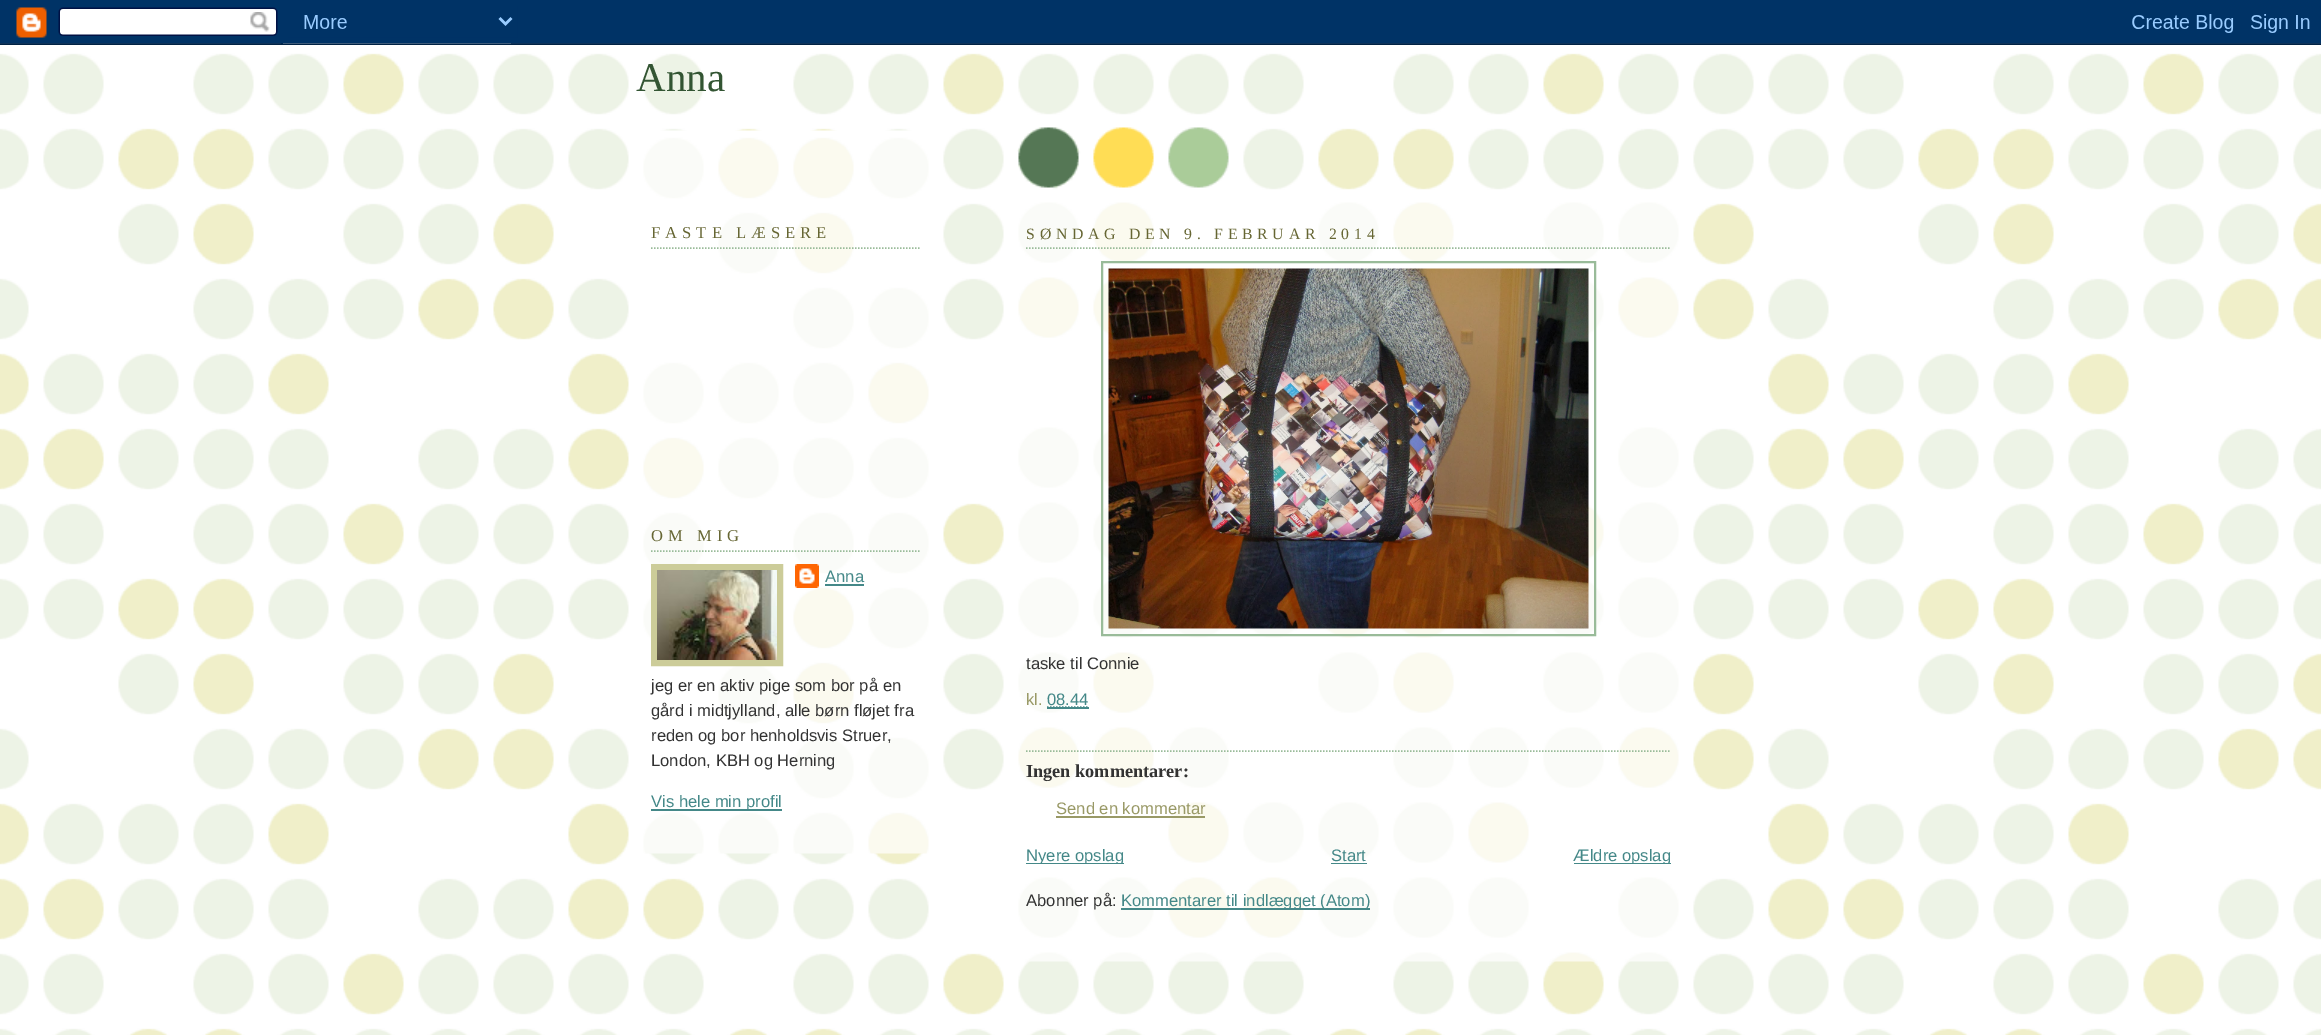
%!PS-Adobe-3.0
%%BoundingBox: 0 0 2321 1035
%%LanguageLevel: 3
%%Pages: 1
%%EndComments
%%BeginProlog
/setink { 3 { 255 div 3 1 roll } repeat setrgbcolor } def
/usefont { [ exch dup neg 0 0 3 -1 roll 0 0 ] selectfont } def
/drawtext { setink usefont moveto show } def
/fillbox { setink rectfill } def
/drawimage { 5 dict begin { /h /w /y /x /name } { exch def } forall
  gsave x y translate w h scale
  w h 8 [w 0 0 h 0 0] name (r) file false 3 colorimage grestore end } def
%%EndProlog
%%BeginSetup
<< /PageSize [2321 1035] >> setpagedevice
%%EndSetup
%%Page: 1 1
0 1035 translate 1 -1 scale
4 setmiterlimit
0 0 2321 1035 255 255 255 fillbox
(assets/img1.rgb) 0 43 2321 992 drawimage
(assets/img2.rgb) 0 0 2321 45 drawimage
(assets/img3.rgb) 1017 127 212 63 drawimage
(Anna) 636 91 /LiberationSerif-Regular 41 51 85 51 drawtext
(assets/img4.rgb) 643 130 286 724 drawimage
153 187 153 setink
1.5 setlinewidth
[1.5 1.5] 0 setdash
651 248 moveto 921 248 lineto stroke
/LiberationSerif-Regular 16.6 usefont
102 102 51 setink
651 238 moveto 5 0 (FASTE LÆSERE) ashow
153 187 153 setink
651 551 moveto 921 551 lineto stroke
102 102 51 setink
651 541 moveto 5 0 (OM MIG) ashow
204 204 153 setink
6 setlinewidth
[] 0 setdash
654 567 126 96 rectstroke
(assets/img5.rgb) 657 570 120 90 drawimage
(assets/img6.rgb) 795 564 24 24 drawimage
(Anna) 825 582 /LiberationSans-Regular 16.6 68 136 136 drawtext
825 584 39 2 68 136 136 fillbox
(jeg er en aktiv pige som bor på en) 651 691 /LiberationSans-Regular 16.6 51 51 51 drawtext
(gård i midtjylland, alle børn fløjet fra) 651 716 /LiberationSans-Regular 16.6 51 51 51 drawtext
(reden og bor henholdsvis Struer,) 651 741 /LiberationSans-Regular 16.6 51 51 51 drawtext
(London, KBH og Herning) 651 766 /LiberationSans-Regular 16.6 51 51 51 drawtext
651 809 131 2 68 136 136 fillbox
(Vis hele min profil) 651 807 /LiberationSans-Regular 16.6 68 136 136 drawtext
(assets/img7.rgb) 1018 202 661 760 drawimage
153 187 153 setink
1.5 setlinewidth
[1.5 1.5] 0 setdash
1026 248 moveto 1671 248 lineto stroke
/LiberationSerif-Regular 15.75 usefont
102 102 51 setink
1026 239 moveto 4.75 0 (SØNDAG DEN 9. FEBRUAR 2014) ashow
153 187 153 setink
2 setlinewidth
[] 0 setdash
1102 262 493 373 rectstroke
(assets/img8.rgb) 1108 268 481 361 drawimage
(taske til Connie) 1026 669 /LiberationSans-Regular 16.6 51 51 51 drawtext
(kl.) 1026 705 /LiberationSans-Regular 16.6 153 153 102 drawtext
(08.44) 1047 705 /LiberationSans-Regular 16.6 68 136 136 drawtext
1.5 setlinewidth
[1.5 1.5] 0 setdash
1047 707 moveto 1088.5 707 lineto stroke
1047 707 42 2 68 136 136 fillbox
153 187 153 setink
1026 751 moveto 1671 751 lineto stroke
(Ingen kommentarer:) 1026 777 /LiberationSerif-Bold 18.25 51 51 51 drawtext
(Send en kommentar) 1056 814 /LiberationSans-Regular 16.6 153 153 102 drawtext
1056 816 149 2 153 153 102 fillbox
1026 863 98 1 68 136 136 fillbox
gsave
1026 846 645 18 rectclip
(Nyere opslag) 1026 861 /LiberationSans-Regular 16.6 68 136 136 drawtext
grestore
(Start) 1331 861 /LiberationSans-Regular 16.6 68 136 136 drawtext
1331 863 36 1 68 136 136 fillbox
1574 863 97 1 68 136 136 fillbox
gsave
1026 846 645 18 rectclip
(Ældre opslag) 1573 861 /LiberationSans-Regular 16.6 68 136 136 drawtext
grestore
(Abonner på:) 1026 906 /LiberationSans-Regular 16.6 51 51 51 drawtext
1121 908 249 2 68 136 136 fillbox
(Kommentarer til indlægget \(Atom\)) 1121 906 /LiberationSans-Regular 16.6 68 136 136 drawtext
showpage
%%EOF
